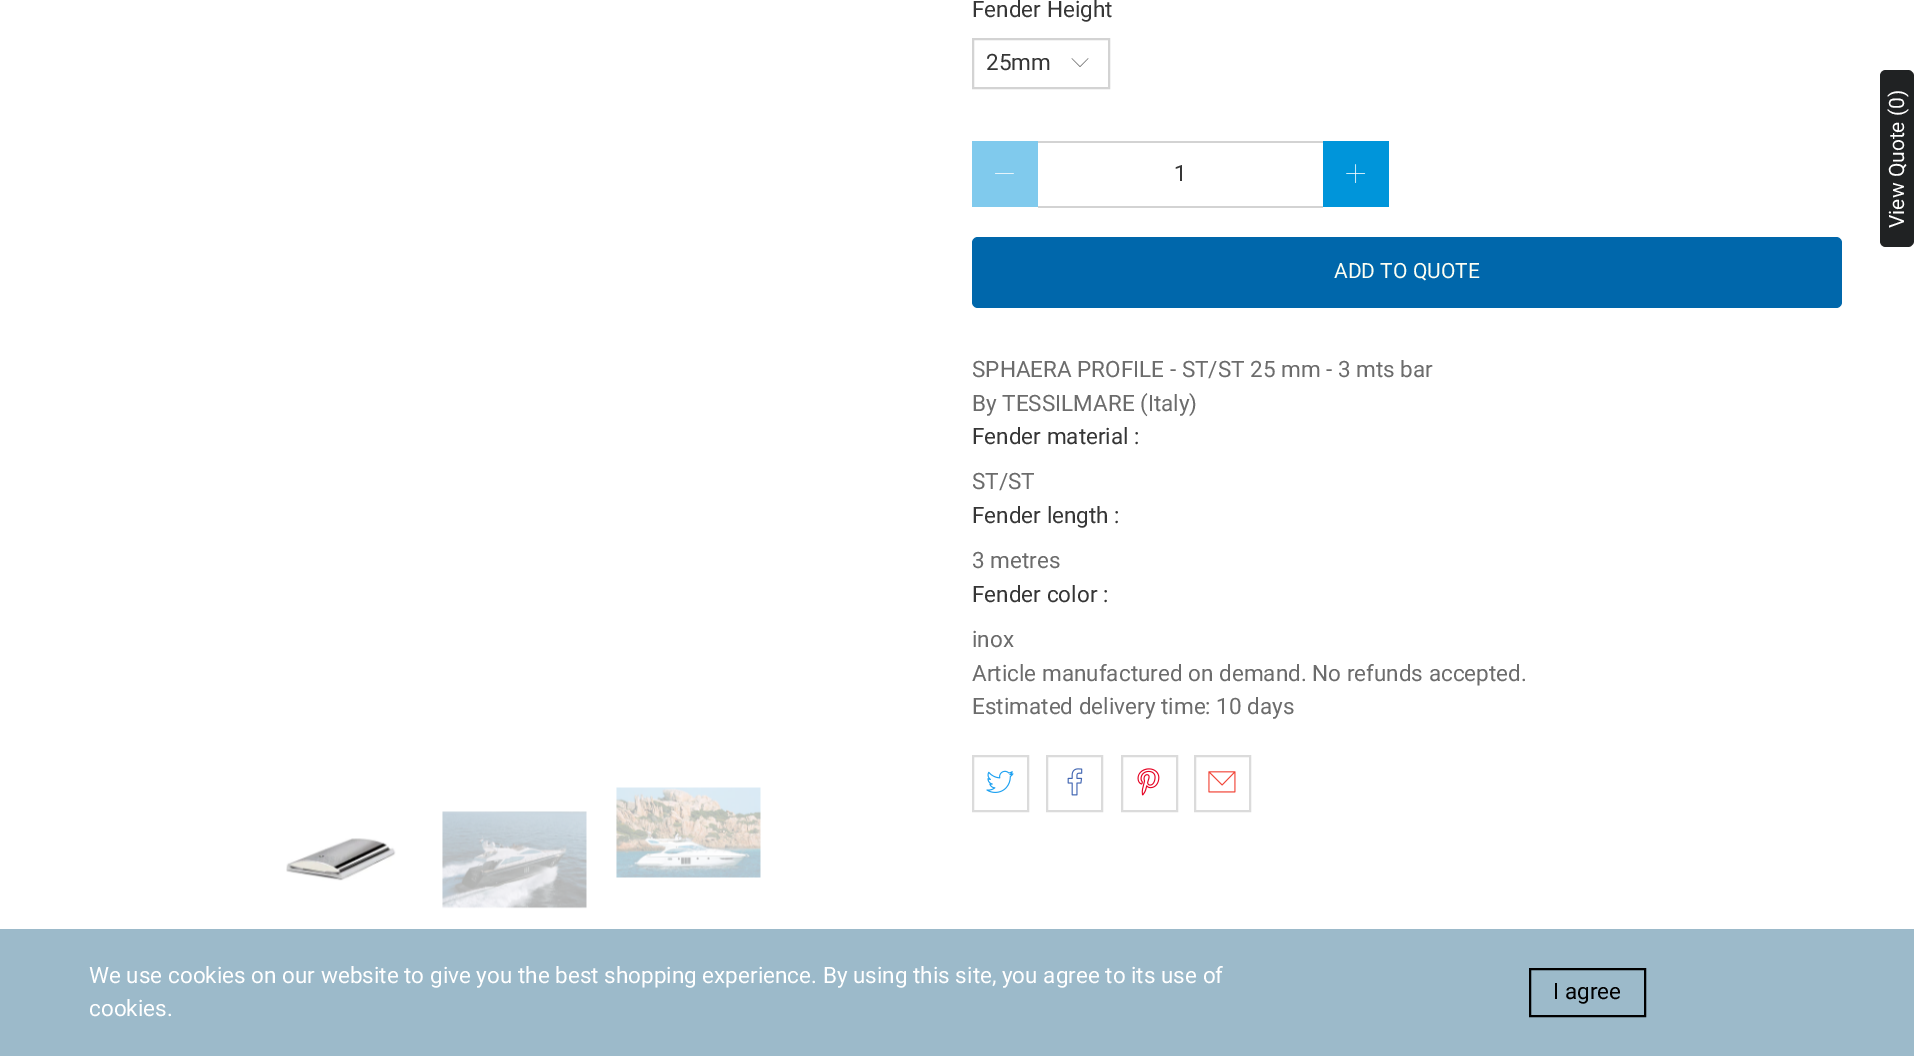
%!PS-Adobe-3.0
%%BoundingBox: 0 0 1914 1056
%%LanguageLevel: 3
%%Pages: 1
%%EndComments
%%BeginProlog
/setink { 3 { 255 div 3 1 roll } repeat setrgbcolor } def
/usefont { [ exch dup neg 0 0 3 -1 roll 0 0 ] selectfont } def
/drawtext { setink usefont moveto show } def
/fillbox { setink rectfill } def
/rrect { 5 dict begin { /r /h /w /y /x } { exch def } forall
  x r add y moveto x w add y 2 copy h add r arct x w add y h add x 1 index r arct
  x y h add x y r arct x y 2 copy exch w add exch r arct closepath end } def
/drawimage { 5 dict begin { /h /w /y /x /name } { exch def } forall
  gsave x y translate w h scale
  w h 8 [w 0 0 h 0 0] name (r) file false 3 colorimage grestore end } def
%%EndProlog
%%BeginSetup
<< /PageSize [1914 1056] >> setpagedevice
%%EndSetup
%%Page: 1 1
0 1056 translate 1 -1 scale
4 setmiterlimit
0 0 1914 1056 255 255 255 fillbox
0 929 1914 127 156 186 202 fillbox
(Fender Height) 972 17 /Roboto-Regular 22.5 54 54 54 drawtext
211 211 211 setink
2 setlinewidth
973 39 136 49 rectstroke
(25mm) 986 70 /Roboto-Regular 22.5 54 54 54 drawtext
(assets/img1.rgb) 1071 58 18 9 drawimage
972 141 66 66 128 202 237 fillbox
(assets/img2.rgb) 995 173 19 1 drawimage
1038 141 285 2 211 211 211 fillbox
1038 206 285 2 211 211 211 fillbox
(1) 1174 181 /Roboto-Regular 22.5 54 54 54 drawtext
1323 141 66 66 0 149 218 fillbox
(assets/img3.rgb) 1346 164 20 19 drawimage
0 103 171 setink
972 237 870 71 6 rrect fill
(ADD TO QUOTE) 1334 278 /Roboto-Regular 21 253 255 243 drawtext
(SPHAERA PROFILE - ST/ST 25 mm - 3 mts bar) 972 377 /Roboto-Regular 22.5 108 108 108 drawtext
(By TESSILMARE \(Italy\)) 972 411 /Roboto-Regular 22.5 108 108 108 drawtext
(Fender material :) 972 444 /Roboto-Regular 22.5 54 54 54 drawtext
(ST/ST) 972 489 /Roboto-Regular 22.5 108 108 108 drawtext
(Fender length :) 972 523 /Roboto-Regular 22.5 54 54 54 drawtext
(3 metres) 972 568 /Roboto-Regular 22.5 108 108 108 drawtext
(Fender color :) 972 602 /Roboto-Regular 22.5 54 54 54 drawtext
(inox) 972 647 /Roboto-Regular 22.5 108 108 108 drawtext
(Article manufactured on demand. No refunds accepted.) 972 681 /Roboto-Regular 22.5 108 108 108 drawtext
(Estimated delivery time: 10 days) 972 714 /Roboto-Regular 22.5 108 108 108 drawtext
219 219 219 setink
973 756 55 55 rectstroke
(assets/img4.rgb) 986 770 28 23 drawimage
1047 756 55 55 rectstroke
(assets/img5.rgb) 1067 768 16 28 drawimage
1122 756 55 55 rectstroke
(assets/img6.rgb) 1137 768 23 28 drawimage
1195 756 55 55 rectstroke
(assets/img7.rgb) 1208 771 28 22 drawimage
(assets/img8.rgb) 286 838 110 43 drawimage
(assets/img9.rgb) 442 811 145 98 drawimage
(assets/img10.rgb) 616 787 145 91 drawimage
32 34 35 setink
1880 241 moveto 1880 76 lineto 1880 73 1882 70 1886 70 curveto 1908 70 lineto 1911 70 1914 73 1914 76 curveto 1914 241 lineto 1914 244 1911 247 1908 247 curveto 1886 247 lineto 1882 247 1880 244 1880 241 curveto closepath fill
/Roboto-Regular 21 usefont
255 255 255 setink
gsave 1904 228 translate -90 rotate 0 0 moveto (View Quote \(0\)) show grestore
(We use cookies on our website to give you the best shopping experience. By using this site, you agree to its use of) 89 983 /Roboto-Regular 22.5 255 255 255 drawtext
(cookies.) 89 1016 /Roboto-Regular 22.5 255 255 255 drawtext
0 0 0 setink
1530 969 115 47 rectstroke
(I agree) 1553 999 /Roboto-Regular 22.5 0 0 0 drawtext
showpage
%%EOF
